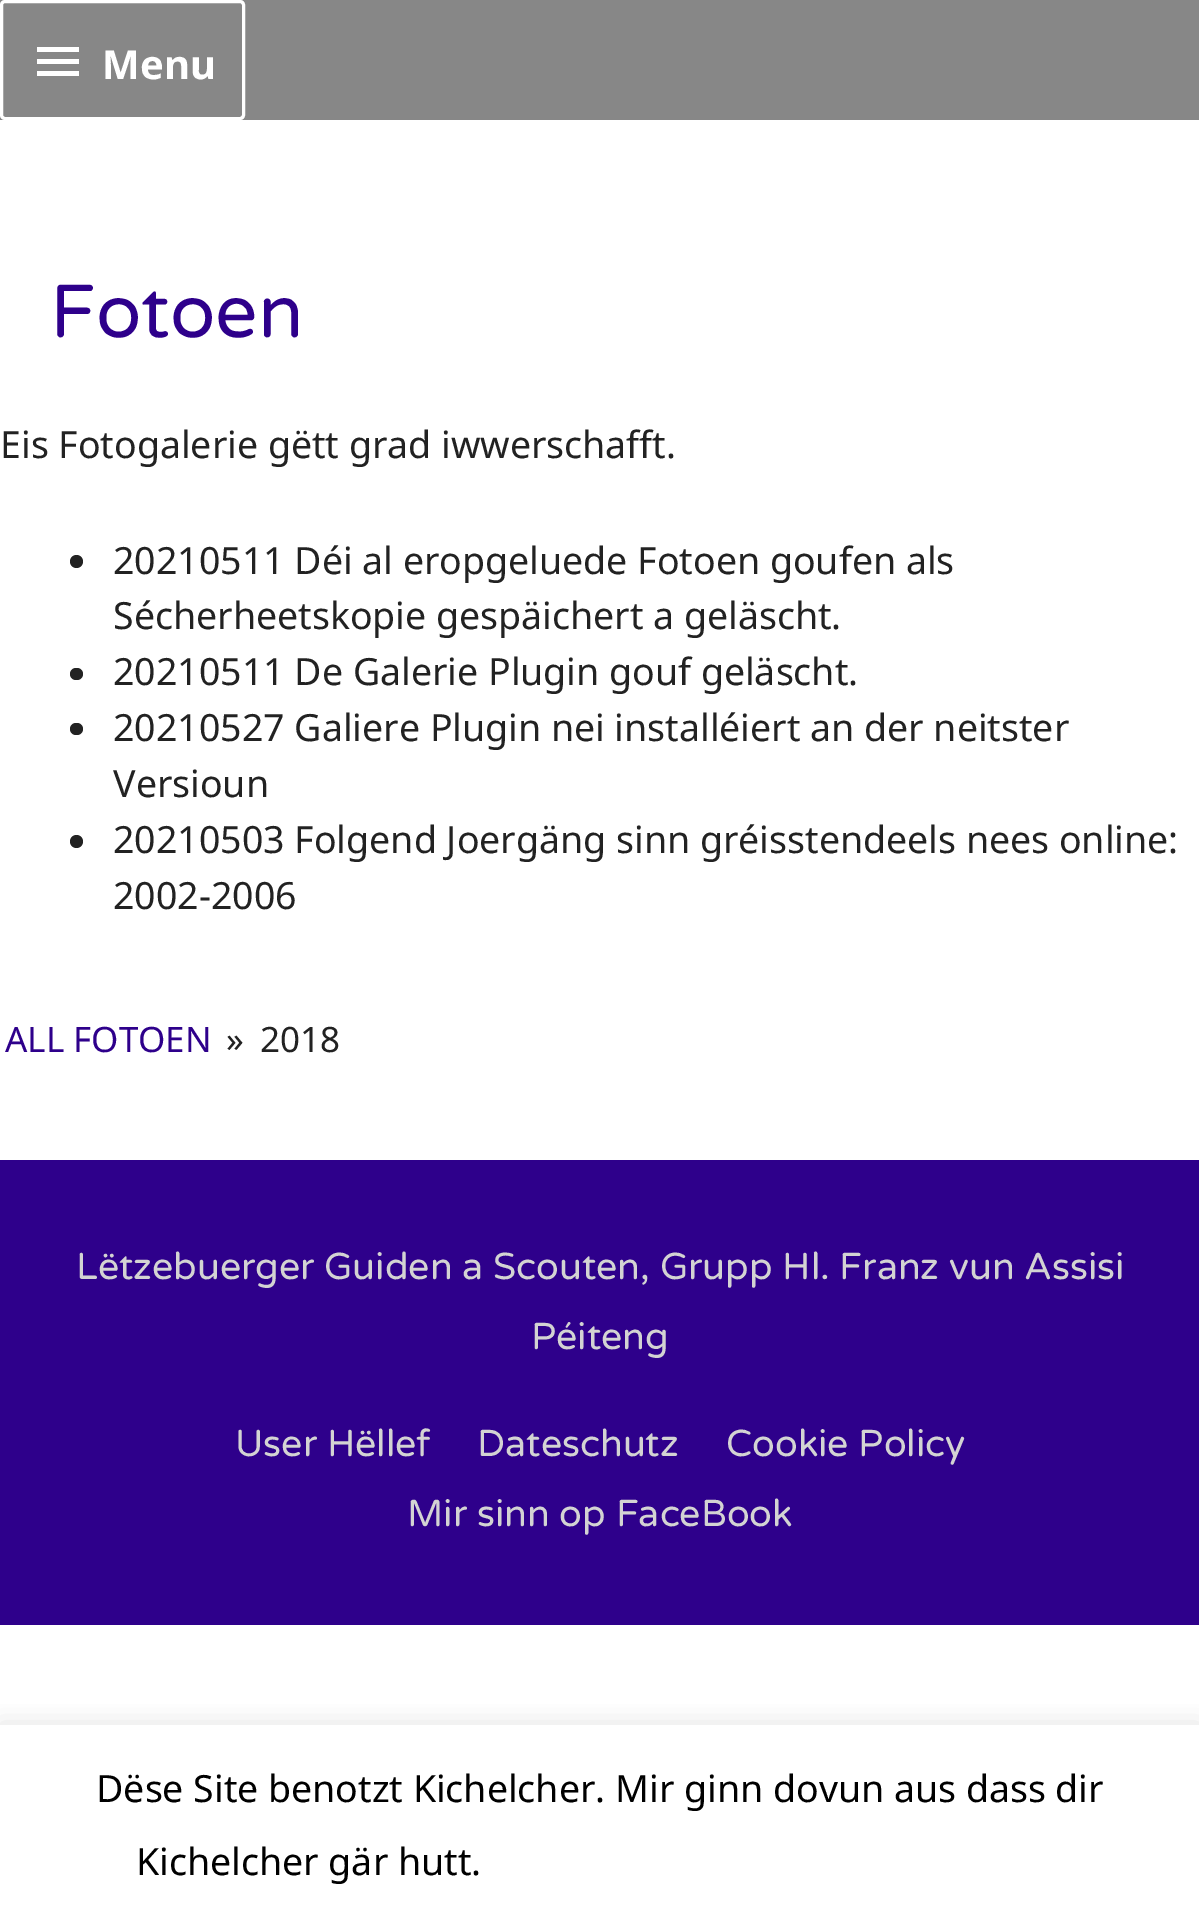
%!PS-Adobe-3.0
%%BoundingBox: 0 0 1199 1929
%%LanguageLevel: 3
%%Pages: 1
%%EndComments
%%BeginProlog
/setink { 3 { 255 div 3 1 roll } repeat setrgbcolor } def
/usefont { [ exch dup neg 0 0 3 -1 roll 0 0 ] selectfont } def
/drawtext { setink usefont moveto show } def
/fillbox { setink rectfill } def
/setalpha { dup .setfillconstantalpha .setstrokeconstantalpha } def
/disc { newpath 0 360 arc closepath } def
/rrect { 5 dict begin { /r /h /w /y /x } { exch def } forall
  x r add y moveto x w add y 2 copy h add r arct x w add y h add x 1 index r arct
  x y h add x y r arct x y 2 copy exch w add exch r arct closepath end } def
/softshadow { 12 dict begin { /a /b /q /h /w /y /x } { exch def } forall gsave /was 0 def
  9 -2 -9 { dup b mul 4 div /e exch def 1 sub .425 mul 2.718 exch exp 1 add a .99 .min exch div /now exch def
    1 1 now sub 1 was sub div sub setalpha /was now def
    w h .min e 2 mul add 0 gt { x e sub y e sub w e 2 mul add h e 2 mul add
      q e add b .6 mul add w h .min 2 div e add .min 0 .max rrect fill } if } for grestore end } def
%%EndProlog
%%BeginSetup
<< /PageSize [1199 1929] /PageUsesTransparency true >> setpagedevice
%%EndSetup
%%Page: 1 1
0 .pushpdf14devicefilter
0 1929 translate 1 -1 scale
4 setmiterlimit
0 0 1199 1929 255 255 255 fillbox
0 0 1199 120 135 135 135 fillbox
255 255 255 setink
3 setlinewidth
1.5 1.5 242 117 3.5 rrect stroke
37 47 moveto 79 47 lineto 79 52 lineto 37 52 lineto closepath 37 64 moveto 37 59 lineto 79 59 lineto 79 64 lineto closepath 37 76 moveto 37 71 lineto 79 71 lineto 79 76 lineto closepath fill
(Menu) 102 79 /NotoSans-Bold 40 255 255 255 drawtext
(Fotoen) 50 337 /VarelaRound-Regular 75 46 0 139 drawtext
(Eis Fotogalerie gëtt grad iwwerschafft.) 0 458 /NotoSans-Regular 37.5 34 34 34 drawtext
76.5 561.5 6.5 disc fill
(20210511 Déi al eropgeluede Fotoen goufen als) 113 574 /NotoSans-Regular 37.5 34 34 34 drawtext
(Sécherheetskopie gespäichert a geläscht.) 113 629 /NotoSans-Regular 37.5 34 34 34 drawtext
70 668 13 12 6 rrect fill
(20210511 De Galerie Plugin gouf geläscht.) 113 685 /NotoSans-Regular 37.5 34 34 34 drawtext
70 723 13 12 6 rrect fill
(20210527 Galiere Plugin nei installéiert an der neitster) 113 741 /NotoSans-Regular 37.5 34 34 34 drawtext
(Versioun) 113 797 /NotoSans-Regular 37.5 34 34 34 drawtext
76.5 841.5 6.5 disc fill
(20210503 Folgend Joergäng sinn gréisstendeels nees online:) 113 853 /NotoSans-Regular 37.5 34 34 34 drawtext
(2002-2006) 113 909 /NotoSans-Regular 37.5 34 34 34 drawtext
(ALL FOTOEN) 5 1052 /NotoSans-Regular 35 46 0 139 drawtext
(») 226 1052 /NotoSans-Regular 35 34 34 34 drawtext
(2018) 260 1052 /NotoSans-Regular 35 34 34 34 drawtext
0 1160 1199 465 46 0 139 fillbox
(Lëtzebuerger Guiden a Scouten, Grupp Hl. Franz vun Assisi) 76 1279 /VarelaRound-Regular 37.5 211 211 211 drawtext
(Péiteng) 531 1349 /VarelaRound-Regular 37.5 211 211 211 drawtext
(User Hëllef) 235 1456 /VarelaRound-Regular 37.5 211 211 211 drawtext
(Dateschutz) 477 1456 /VarelaRound-Regular 37.5 211 211 211 drawtext
(Cookie Policy) 726 1456 /VarelaRound-Regular 37.5 211 211 211 drawtext
(Mir sinn op FaceBook) 407 1526 /VarelaRound-Regular 37.5 211 211 211 drawtext
gsave
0 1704 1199 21 rectclip
172 171 171 setink
0 1723 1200 205 0 12.5 0.3 softshadow
grestore
(Dëse Site benotzt Kichelcher. Mir ginn dovun aus dass dir) 96 1802 /NotoSans-Regular 37.5 0 0 0 drawtext
(Kichelcher gär hutt.) 136 1875 /NotoSans-Regular 37.5 0 0 0 drawtext
.poppdf14devicefilter showpage
%%EOF
